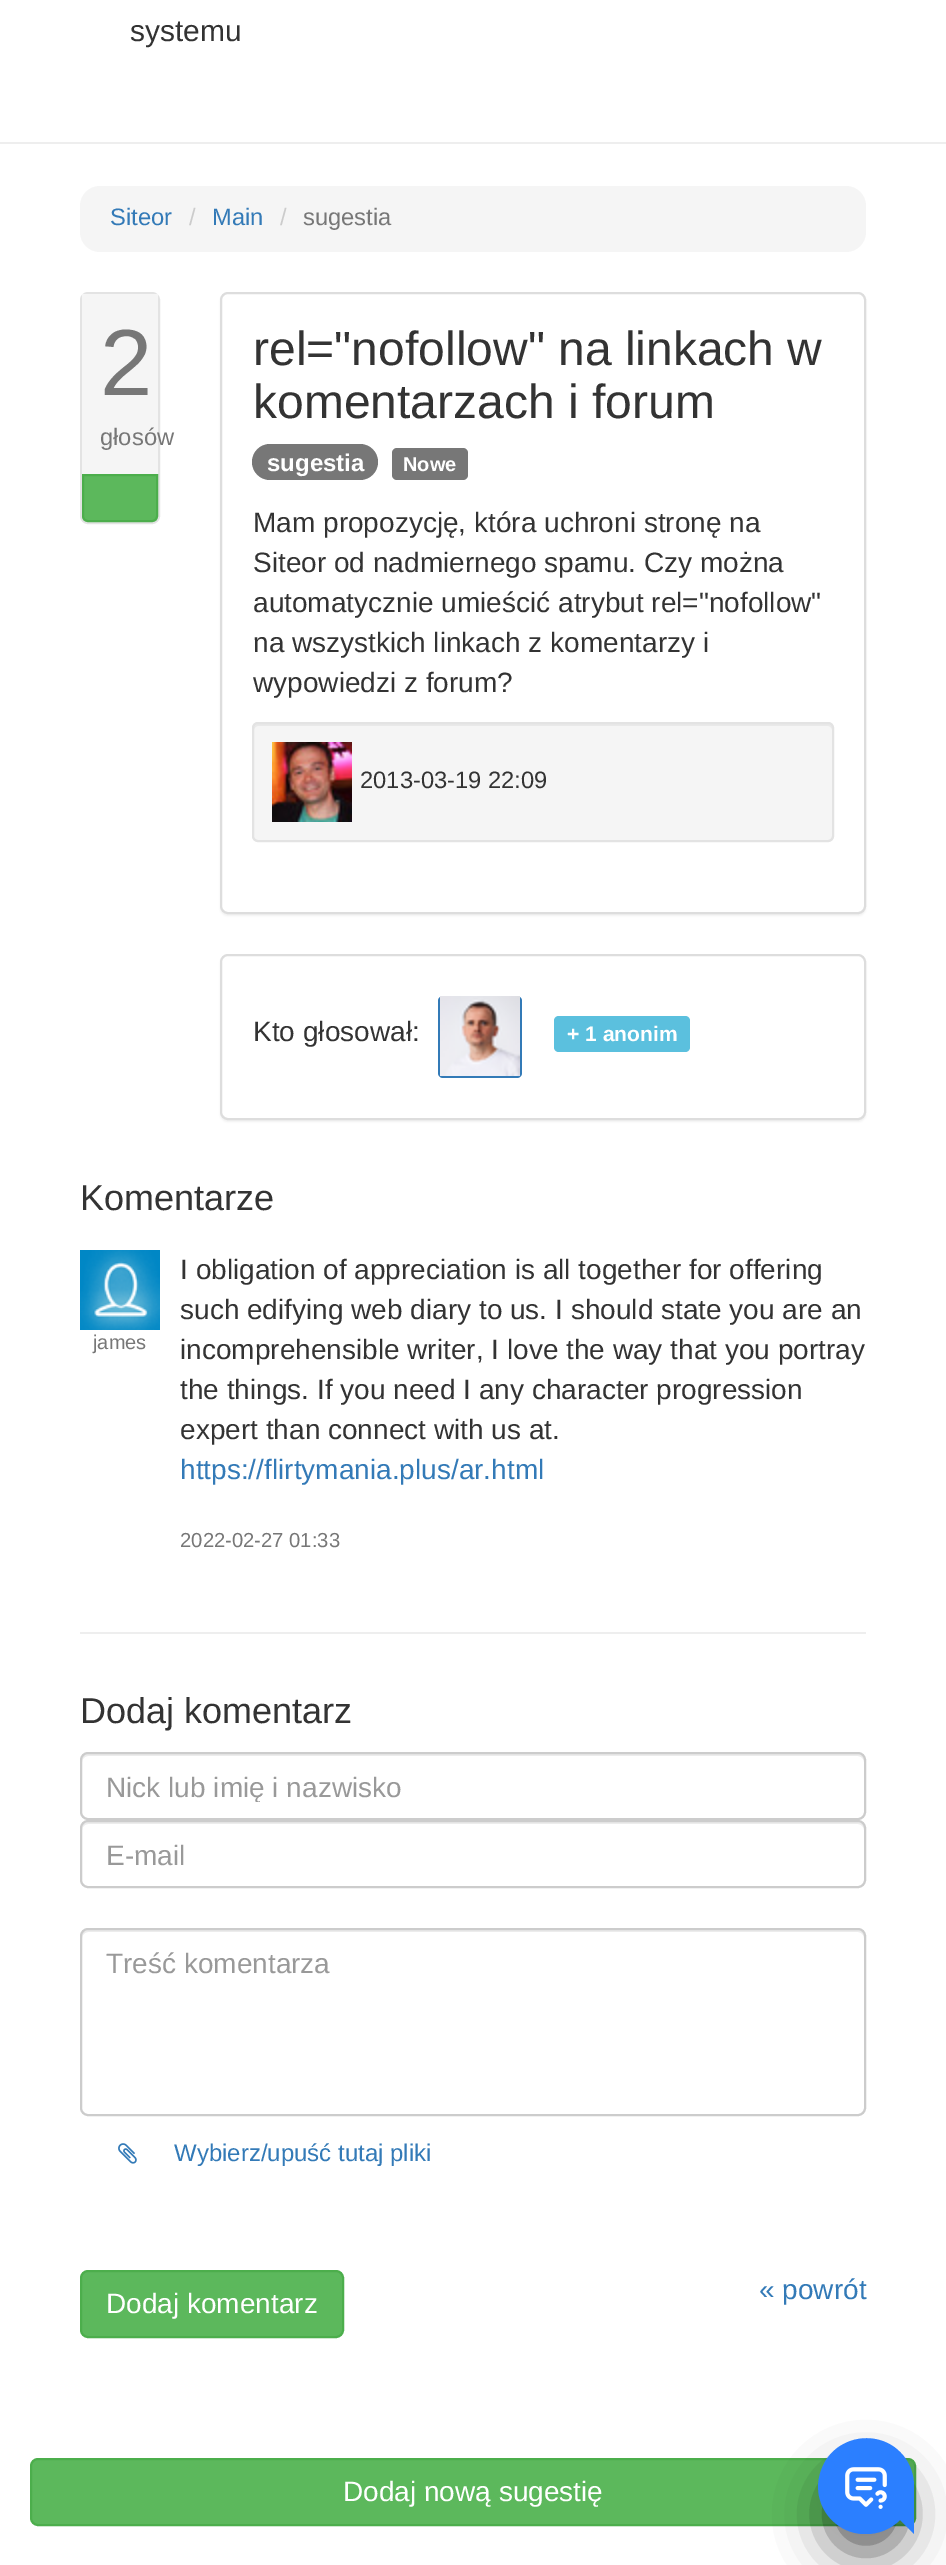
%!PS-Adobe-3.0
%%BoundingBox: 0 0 946 2565
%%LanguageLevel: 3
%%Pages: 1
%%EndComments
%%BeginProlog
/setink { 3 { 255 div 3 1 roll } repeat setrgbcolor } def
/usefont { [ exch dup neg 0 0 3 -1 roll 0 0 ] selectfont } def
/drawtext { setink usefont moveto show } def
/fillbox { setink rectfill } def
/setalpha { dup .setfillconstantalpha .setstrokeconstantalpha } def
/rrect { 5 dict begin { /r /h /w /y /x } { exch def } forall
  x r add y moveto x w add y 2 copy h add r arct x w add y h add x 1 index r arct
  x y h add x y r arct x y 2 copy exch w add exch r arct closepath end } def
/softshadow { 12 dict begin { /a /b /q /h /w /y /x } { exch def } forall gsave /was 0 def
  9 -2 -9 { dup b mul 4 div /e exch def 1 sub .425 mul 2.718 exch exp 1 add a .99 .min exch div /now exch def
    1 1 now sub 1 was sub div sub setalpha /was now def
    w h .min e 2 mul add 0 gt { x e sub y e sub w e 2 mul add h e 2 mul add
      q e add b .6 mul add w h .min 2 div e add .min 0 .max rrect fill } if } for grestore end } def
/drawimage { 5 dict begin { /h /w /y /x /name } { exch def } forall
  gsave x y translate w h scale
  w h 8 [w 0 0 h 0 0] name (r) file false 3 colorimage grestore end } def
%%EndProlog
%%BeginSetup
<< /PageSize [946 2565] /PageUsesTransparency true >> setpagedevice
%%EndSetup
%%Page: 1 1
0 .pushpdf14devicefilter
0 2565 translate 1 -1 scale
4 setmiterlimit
0 0 946 2565 255 255 255 fillbox
(systemu) 130 41 /LiberationSans-Regular 30 51 51 51 drawtext
0 142 946 2 238 238 238 fillbox
245 245 245 setink
80 186 786 66 20 rrect fill
(Siteor) 110 225 /LiberationSans-Regular 23.75 51 122 183 drawtext
(/) 189 225 /LiberationSans-Regular 23.75 204 204 204 drawtext
(Main) 212 225 /LiberationSans-Regular 23.75 51 122 183 drawtext
(/) 280 225 /LiberationSans-Regular 23.75 204 204 204 drawtext
(sugestia) 303 225 /LiberationSans-Regular 23.75 119 119 119 drawtext
227 227 227 setink
2 setlinewidth
81 293 78 230 7 rrect stroke
82 294 76 180 245 245 245 fillbox
(2) 100 395 /LiberationSans-Regular 94 119 119 119 drawtext
(głosów) 100 445 /LiberationSans-Regular 23.75 119 119 119 drawtext
92 184 92 setink
83 475 moveto 157 475 lineto 157 516 lineto 157 519 155 521 152 521 curveto 88 521 lineto 85 521 83 519 83 516 curveto closepath gsave fill grestore
76 174 76 setink
stroke
0 0 0 setink
220 294 646 622 8 1 0.05 softshadow
255 255 255 setink
221 293 644 620 7 rrect gsave fill grestore
221 221 221 setink
stroke
(rel="nofollow" na linkach w) 253 365 /LiberationSans-Regular 48 51 51 51 drawtext
(komentarzach i forum) 253 418 /LiberationSans-Regular 48 51 51 51 drawtext
119 119 119 setink
252 444 126 36 18 rrect fill
(sugestia) 267 471 /LiberationSans-Bold 24 255 255 255 drawtext
119 119 119 setink
392 448 76 32 5 rrect fill
(Nowe) 403 471 /LiberationSans-Bold 20 255 255 255 drawtext
(Mam propozycję, która uchroni stronę na) 253 532 /LiberationSans-Regular 28 51 51 51 drawtext
(Siteor od nadmiernego spamu. Czy można) 253 572 /LiberationSans-Regular 28 51 51 51 drawtext
(automatycznie umieścić atrybut rel="nofollow") 253 612 /LiberationSans-Regular 28 51 51 51 drawtext
(na wszystkich linkach z komentarzy i) 253 652 /LiberationSans-Regular 28 51 51 51 drawtext
(wypowiedzi z forum?) 253 692 /LiberationSans-Regular 28 51 51 51 drawtext
245 245 245 setink
252 722 582 120 6 rrect fill
233 233 233 setink
258 726 moveto 828 726 lineto 830 726 832 728 832 730 curveto 832 728 lineto 832 726 830 724 828 724 curveto 258 724 lineto 256 724 254 726 254 728 curveto 254 730 lineto 254 728 256 726 258 726 curveto closepath fill
227 227 227 setink
253 723 580 118 5 rrect stroke
(assets/img1.rgb) 272 742 80 80 drawimage
(2013-03-19 22:09) 360 788 /LiberationSans-Regular 23.75 51 51 51 drawtext
0 0 0 setink
220 956 646 166 8 1 0.05 softshadow
255 255 255 setink
221 955 644 164 7 rrect gsave fill grestore
221 221 221 setink
stroke
(Kto głosował:) 253 1041 /LiberationSans-Regular 28 51 51 51 drawtext
51 122 183 setink
438 996 84 82 5 rrect fill
(assets/img2.rgb) 440 996 80 80 drawimage
91 192 222 setink
559 1016 moveto 598 1016 lineto 598 1052 lineto 559 1052 lineto 556 1052 554 1050 554 1047 curveto 554 1021 lineto 554 1018 556 1016 559 1016 curveto closepath fill
598 1016 4 36 91 192 222 fillbox
602 1016 moveto 685 1016 lineto 688 1016 690 1018 690 1021 curveto 690 1047 lineto 690 1050 688 1052 685 1052 curveto 602 1052 lineto closepath fill
(+ 1 anonim) 567 1041 /LiberationSans-Bold 21 255 255 255 drawtext
(Komentarze) 80 1210 /LiberationSans-Regular 36 51 51 51 drawtext
(assets/img3.rgb) 80 1250 80 80 drawimage
(james) 93 1349 /LiberationSans-Regular 20 119 119 119 drawtext
(I obligation of appreciation is all together for offering) 180 1279 /LiberationSans-Regular 28 51 51 51 drawtext
(such edifying web diary to us. I should state you are an) 180 1319 /LiberationSans-Regular 28 51 51 51 drawtext
(incomprehensible writer, I love the way that you portray) 180 1359 /LiberationSans-Regular 28 51 51 51 drawtext
(the things. If you need I any character progression) 180 1399 /LiberationSans-Regular 28 51 51 51 drawtext
(expert than connect with us at.) 180 1439 /LiberationSans-Regular 28 51 51 51 drawtext
(https://flirtymania.plus/ar.html) 180 1479 /LiberationSans-Regular 28 51 122 183 drawtext
(2022-02-27 01:33) 180 1547 /LiberationSans-Regular 20.25 119 119 119 drawtext
80 1632 786 2 238 238 238 fillbox
(Dodaj komentarz) 80 1723 /LiberationSans-Regular 36 51 51 51 drawtext
236 236 236 setink
88 1756 moveto 858 1756 lineto 861 1756 864 1759 864 1762 curveto 864 1760 lineto 864 1757 861 1754 858 1754 curveto 88 1754 lineto 85 1754 82 1757 82 1760 curveto 82 1762 lineto 82 1759 85 1756 88 1756 curveto closepath fill
204 204 204 setink
81 1753 784 66 7 rrect stroke
gsave
106 1770 734 32 rectclip
(Nick lub imię i nazwisko) 106 1797 /LiberationSans-Regular 28 153 153 153 drawtext
grestore
236 236 236 setink
88 1824 moveto 858 1824 lineto 861 1824 864 1827 864 1830 curveto 864 1828 lineto 864 1825 861 1822 858 1822 curveto 88 1822 lineto 85 1822 82 1825 82 1828 curveto 82 1830 lineto 82 1827 85 1824 88 1824 curveto closepath fill
204 204 204 setink
81 1821 784 66 7 rrect stroke
(E-mail) 106 1865 /LiberationSans-Regular 28 153 153 153 drawtext
236 236 236 setink
88 1932 moveto 858 1932 lineto 861 1932 864 1935 864 1938 curveto 864 1936 lineto 864 1933 861 1930 858 1930 curveto 88 1930 lineto 85 1930 82 1933 82 1936 curveto 82 1938 lineto 82 1935 85 1932 88 1932 curveto closepath fill
204 204 204 setink
81 1929 784 186 7 rrect stroke
(Treść komentarza) 106 1973 /LiberationSans-Regular 28 153 153 153 drawtext
(assets/img4.rgb) 118 2143 19 21 drawimage
(Wybierz/upuść tutaj pliki) 174 2161 /LiberationSans-Regular 24 51 122 183 drawtext
92 184 92 setink
81 2271 262 66 7 rrect gsave fill grestore
76 174 76 setink
stroke
(Dodaj komentarz) 106 2313 /LiberationSans-Regular 28 255 255 255 drawtext
(« powrót) 759 2299 /LiberationSans-Regular 28 51 122 183 drawtext
92 184 92 setink
31 2459 884 66 7 rrect gsave fill grestore
76 174 76 setink
stroke
(Dodaj nową sugestię) 343 2501 /LiberationSans-Regular 28 255 255 255 drawtext
0 0 0 setink
828 2476 76 76 38 25 0.62 softshadow
834 2462 64 64 32 8 0.18 softshadow
gsave
818 2438 96 96 rectclip
43 127 255 setink
914 2486 moveto 914 2534 lineto 900 2520 lineto 884 2536 858 2539 839 2526 curveto 820 2513 813 2489 822 2468 curveto 830 2447 853 2435 875 2439 curveto 898 2443 914 2463 914 2486 curveto closepath fill
grestore
(assets/img5.rgb) 845 2467 42 42 drawimage
.poppdf14devicefilter showpage
%%EOF
